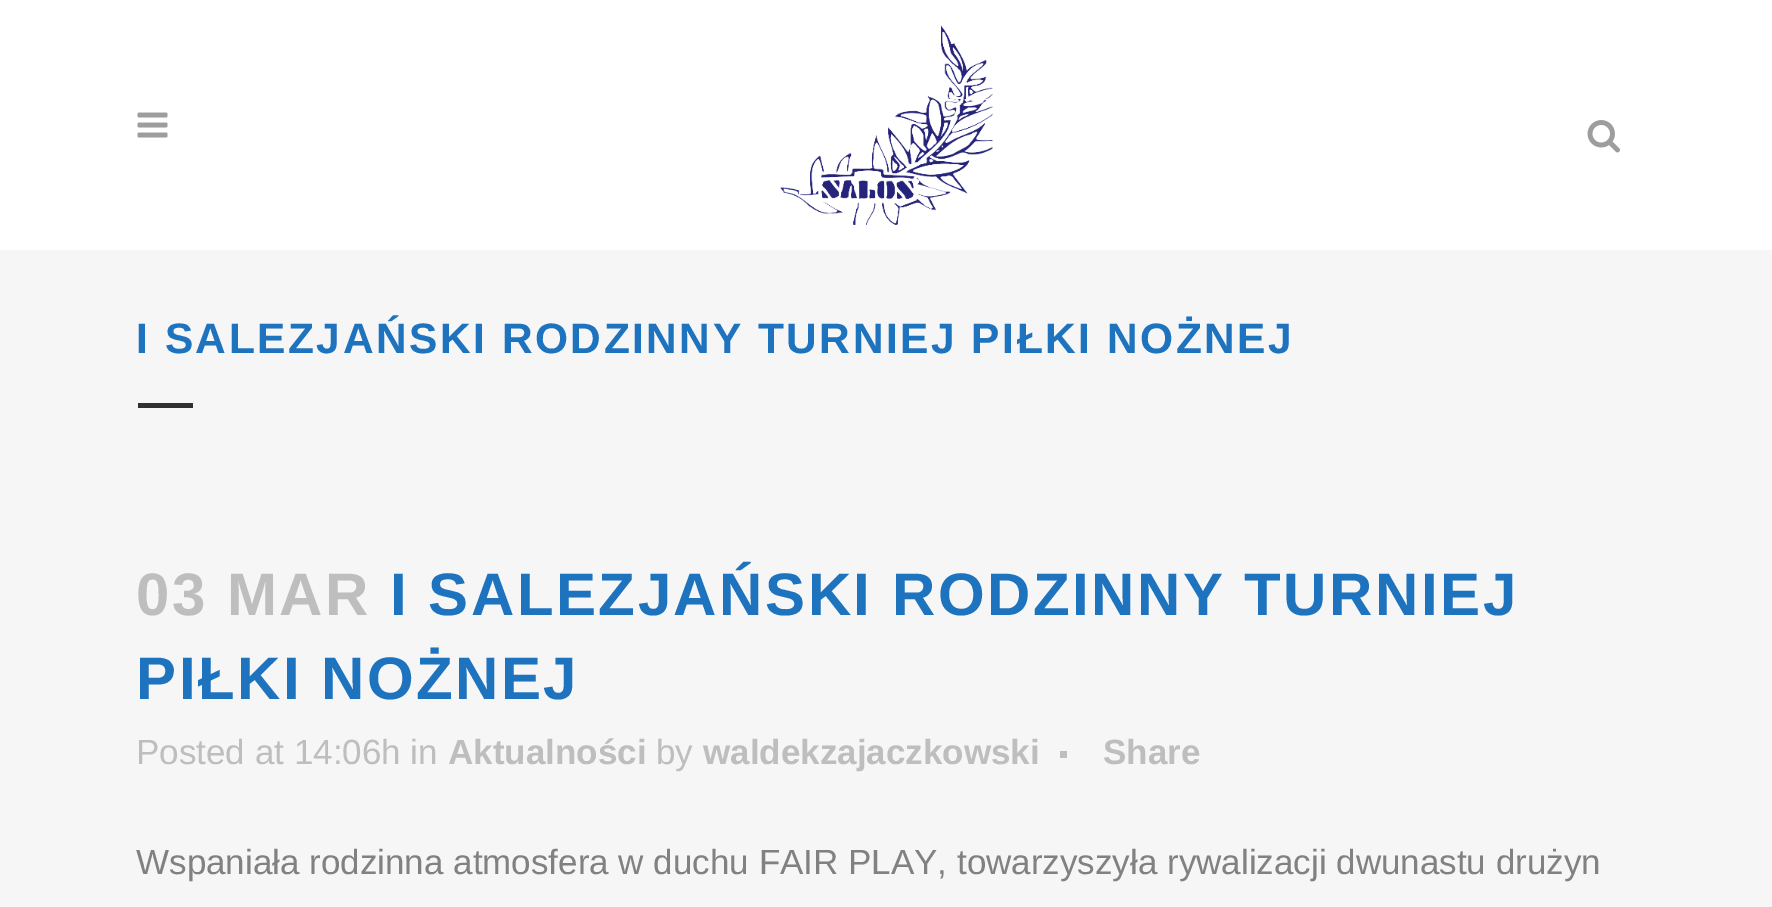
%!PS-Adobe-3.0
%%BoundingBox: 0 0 1772 907
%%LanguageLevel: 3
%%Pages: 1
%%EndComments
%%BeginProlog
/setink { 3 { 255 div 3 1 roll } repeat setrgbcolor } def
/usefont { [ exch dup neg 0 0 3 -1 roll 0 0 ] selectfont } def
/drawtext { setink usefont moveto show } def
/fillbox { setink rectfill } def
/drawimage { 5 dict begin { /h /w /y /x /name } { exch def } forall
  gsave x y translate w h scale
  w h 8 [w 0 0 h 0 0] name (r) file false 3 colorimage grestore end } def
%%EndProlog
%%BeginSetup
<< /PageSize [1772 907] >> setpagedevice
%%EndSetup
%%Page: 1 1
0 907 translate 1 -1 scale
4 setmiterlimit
0 0 1772 907 246 246 246 fillbox
0 0 1772 250 255 255 255 fillbox
(assets/img1.rgb) 137 112 31 26 drawimage
(assets/img2.rgb) 780 25 213 200 drawimage
(assets/img3.rgb) 1587 120 33 33 drawimage
/LiberationSans-Bold 42.5 usefont
30 115 190 setink
136 353 moveto 2.5 0 (I SALEZJAŃSKI RODZINNY TURNIEJ PIŁKI NOŻNEJ) ashow
138 403 55 5 48 48 48 fillbox
/LiberationSans-Bold 60 usefont
190 190 190 setink
136 615 moveto 2.5 0 (03 MAR) ashow
30 115 190 setink
390 615 moveto 2.5 0 (I SALEZJAŃSKI RODZINNY TURNIEJ) ashow
136 699 moveto 2.5 0 (PIŁKI NOŻNEJ) ashow
(Posted at 14:06h in) 136 764 /LiberationSans-Regular 35 190 190 190 drawtext
(Aktualności) 448 764 /LiberationSans-Bold 35 190 190 190 drawtext
(by) 656 764 /LiberationSans-Regular 35 190 190 190 drawtext
(waldekzajaczkowski) 703 764 /LiberationSans-Bold 35 190 190 190 drawtext
1060 751 7 7 190 190 190 fillbox
(Share) 1103 764 /LiberationSans-Bold 35 190 190 190 drawtext
(Wspaniała rodzinna atmosfera w duchu FAIR PLAY, towarzyszyła rywalizacji dwunastu drużyn) 136 874 /LiberationSans-Regular 35 129 129 129 drawtext
showpage
%%EOF
